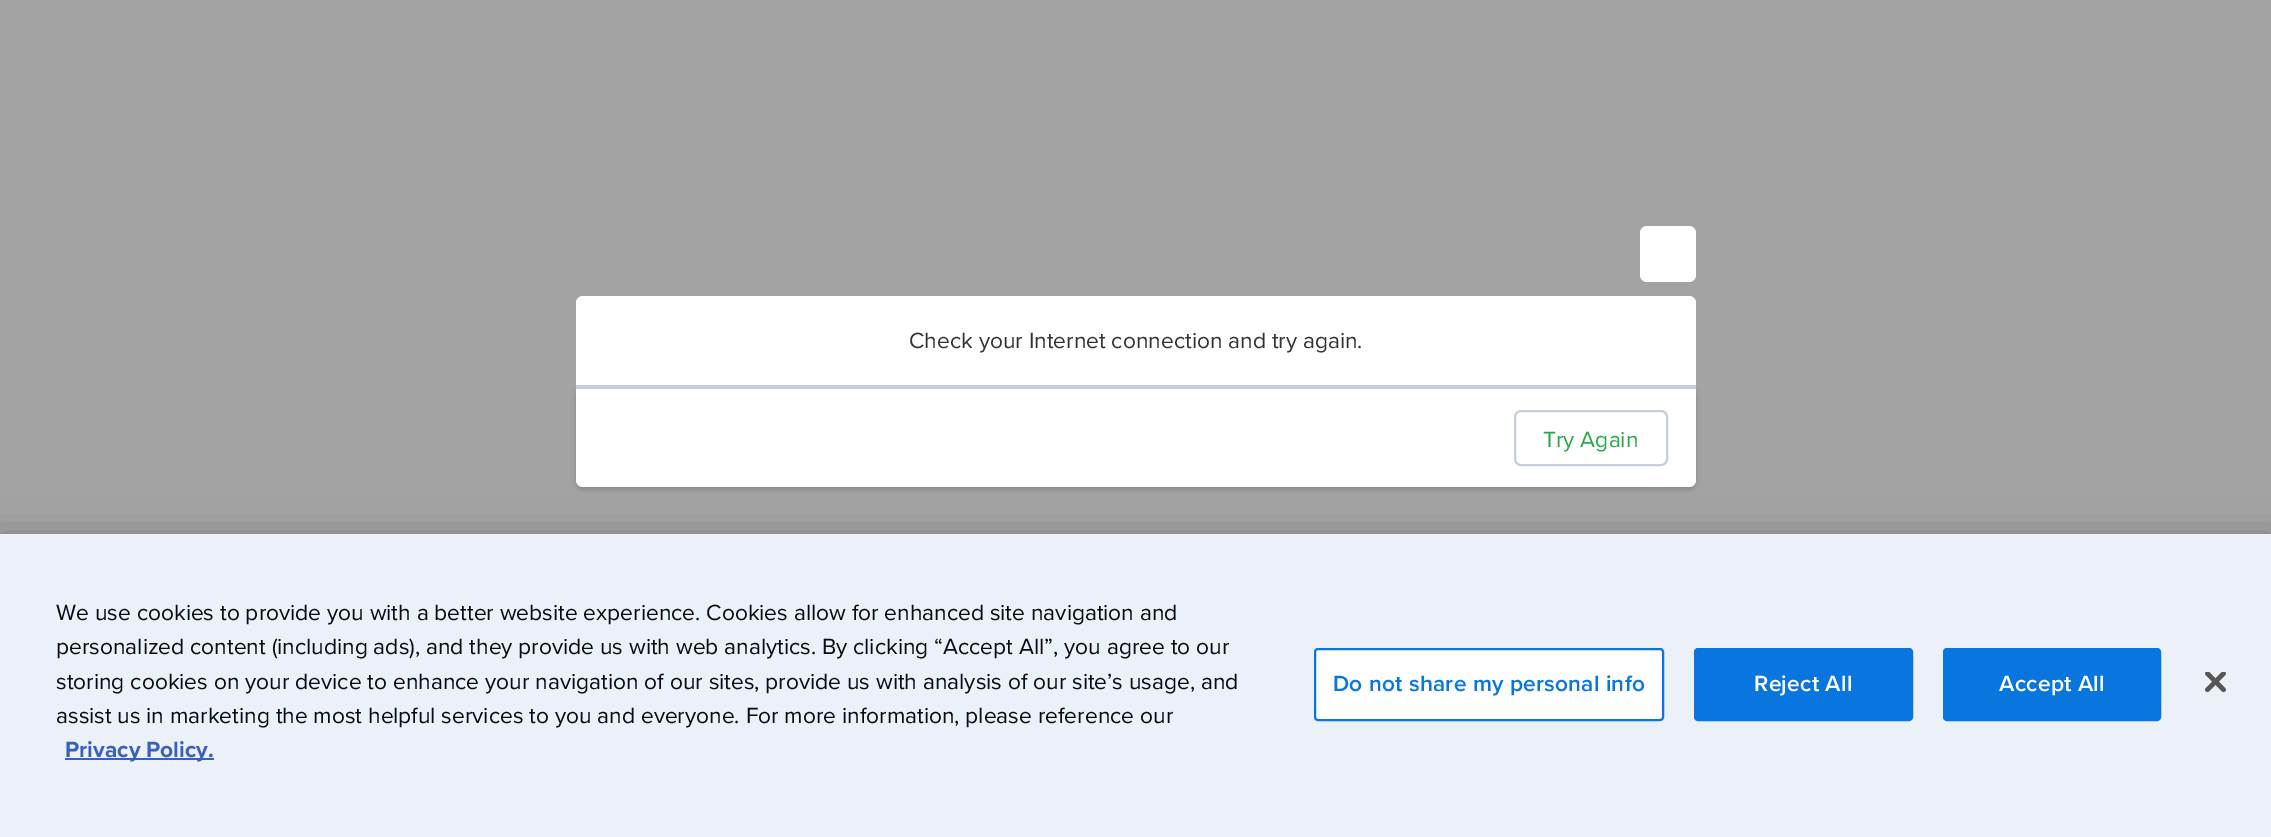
%!PS-Adobe-3.0
%%BoundingBox: 0 0 2271 837
%%LanguageLevel: 3
%%Pages: 1
%%EndComments
%%BeginProlog
/setink { 3 { 255 div 3 1 roll } repeat setrgbcolor } def
/usefont { [ exch dup neg 0 0 3 -1 roll 0 0 ] selectfont } def
/drawtext { setink usefont moveto show } def
/fillbox { setink rectfill } def
/setalpha { dup .setfillconstantalpha .setstrokeconstantalpha } def
/rrect { 5 dict begin { /r /h /w /y /x } { exch def } forall
  x r add y moveto x w add y 2 copy h add r arct x w add y h add x 1 index r arct
  x y h add x y r arct x y 2 copy exch w add exch r arct closepath end } def
/softshadow { 12 dict begin { /a /b /q /h /w /y /x } { exch def } forall gsave /was 0 def
  9 -2 -9 { dup b mul 4 div /e exch def 1 sub .425 mul 2.718 exch exp 1 add a .99 .min exch div /now exch def
    1 1 now sub 1 was sub div sub setalpha /was now def
    w h .min e 2 mul add 0 gt { x e sub y e sub w e 2 mul add h e 2 mul add
      q e add b .6 mul add w h .min 2 div e add .min 0 .max rrect fill } if } for grestore end } def
/drawimage { 5 dict begin { /h /w /y /x /name } { exch def } forall
  gsave x y translate w h scale
  w h 8 [w 0 0 h 0 0] name (r) file false 3 colorimage grestore end } def
%%EndProlog
%%BeginSetup
<< /PageSize [2271 837] /PageUsesTransparency true >> setpagedevice
%%EndSetup
%%Page: 1 1
0 .pushpdf14devicefilter
0 837 translate 1 -1 scale
4 setmiterlimit
0 0 2271 837 163 163 163 fillbox
255 255 255 setink
1640 226 56 56 7 rrect fill
0 0 0 setink
576 389 1120 101 7 2.5 0.16 softshadow
255 255 255 setink
583 296 moveto 1689 296 lineto 1693 296 1696 299 1696 303 curveto 1696 385 lineto 576 385 lineto 576 303 lineto 576 299 579 296 583 296 curveto closepath fill
(Check your Internet connection and try again.) 909 348 /ProximaNova-Regular 22.75 51 51 51 drawtext
255 255 255 setink
576 385 moveto 1696 385 lineto 1696 480 lineto 1696 484 1693 487 1689 487 curveto 583 487 lineto 579 487 576 484 576 480 curveto closepath fill
576 385 1120 4 198 205 220 fillbox
2 setlinewidth
1515 411 152 54 6 rrect stroke
(Try Again) 1543 447 /ProximaNova-Regular 22.75 38 168 70 drawtext
0 0 0 setink
0 534 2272 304 0 16 0.2 softshadow
0 534 2271 303 235 240 249 fillbox
(We use cookies to provide you with a better website experience. Cookies allow for enhanced site navigation and) 56 620 /ProximaNova-Regular 22.75 1 14 26 drawtext
(personalized content \(including ads\), and they provide us with web analytics. By clicking “Accept All”, you agree to our) 56 654 /ProximaNova-Regular 22.75 1 14 26 drawtext
(storing cookies on your device to enhance your navigation of our sites, provide us with analysis of our site’s usage, and) 56 689 /ProximaNova-Regular 22.75 1 14 26 drawtext
(assist us in marketing the most helpful services to you and everyone. For more information, please reference our) 56 723 /ProximaNova-Regular 22.75 1 14 26 drawtext
65 758 149 2 56 96 190 fillbox
(Privacy Policy.) 65 757 /ProximaNova-Bold 22.75 56 96 190 drawtext
255 255 255 setink
1315 649 348 71 3 rrect gsave fill grestore
9 117 222 setink
stroke
/ProximaNova-SemiBold 22.75 usefont
1333 691 moveto 0.25 0 (Do not share my personal info) ashow
1695 649 217 71 3 rrect gsave fill grestore
stroke
255 255 255 setink
1754 691 moveto 0.25 0 (Reject All) ashow
9 117 222 setink
1944 649 216 71 3 rrect gsave fill grestore
stroke
255 255 255 setink
1999 691 moveto 0.25 0 (Accept All) ashow
(assets/img1.rgb) 2205 672 21 21 drawimage
.poppdf14devicefilter showpage
%%EOF
